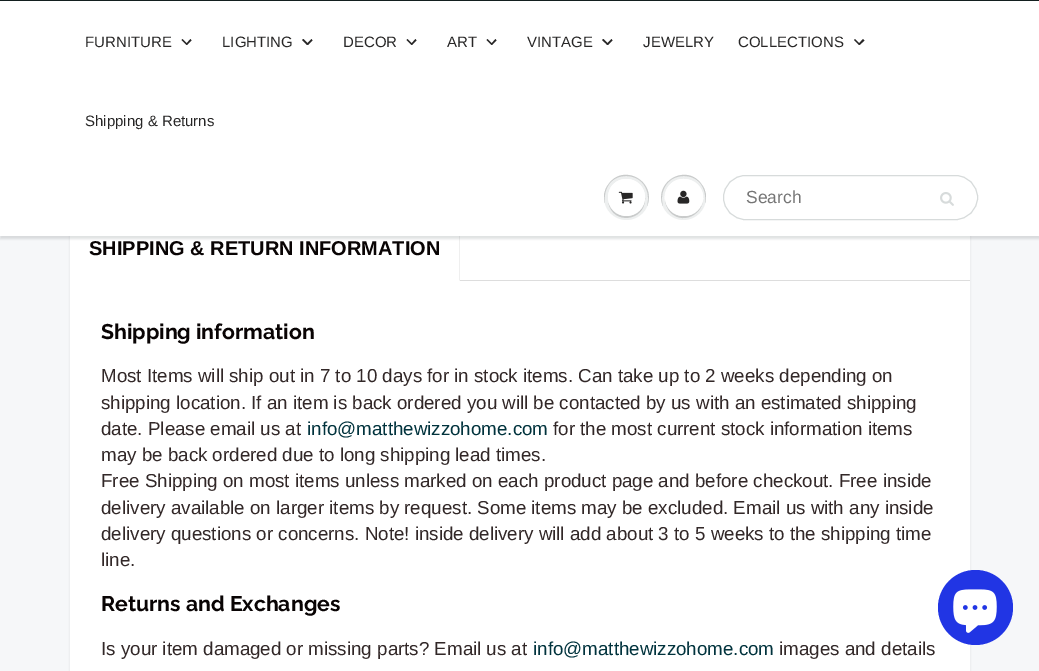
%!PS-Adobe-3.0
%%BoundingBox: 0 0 1039 671
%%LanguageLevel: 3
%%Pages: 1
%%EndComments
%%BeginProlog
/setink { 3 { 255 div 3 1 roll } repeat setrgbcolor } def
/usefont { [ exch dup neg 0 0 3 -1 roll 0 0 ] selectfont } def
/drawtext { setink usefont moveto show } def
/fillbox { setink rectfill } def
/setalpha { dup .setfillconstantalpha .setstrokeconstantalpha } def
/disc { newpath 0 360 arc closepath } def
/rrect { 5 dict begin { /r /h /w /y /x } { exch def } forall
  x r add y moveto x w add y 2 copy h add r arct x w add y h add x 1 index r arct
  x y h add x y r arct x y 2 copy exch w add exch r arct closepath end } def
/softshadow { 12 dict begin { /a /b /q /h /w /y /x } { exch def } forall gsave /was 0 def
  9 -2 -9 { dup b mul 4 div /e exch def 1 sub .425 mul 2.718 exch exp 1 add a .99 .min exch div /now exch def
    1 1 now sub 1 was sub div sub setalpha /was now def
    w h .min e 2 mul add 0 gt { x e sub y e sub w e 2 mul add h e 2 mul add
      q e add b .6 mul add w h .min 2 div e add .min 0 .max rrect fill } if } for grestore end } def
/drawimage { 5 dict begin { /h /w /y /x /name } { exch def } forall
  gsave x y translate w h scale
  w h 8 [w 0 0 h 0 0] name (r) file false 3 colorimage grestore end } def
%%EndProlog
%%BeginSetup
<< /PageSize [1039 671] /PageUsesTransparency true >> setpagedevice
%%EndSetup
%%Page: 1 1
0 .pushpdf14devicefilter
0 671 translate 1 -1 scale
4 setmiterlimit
0 0 1039 671 246 247 249 fillbox
11 25 28 setink
70 220 900 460 6 1 0.1 softshadow
70 236 900 435 255 255 255 fillbox
239 239 239 setink
460 218 moveto 460 281 lineto 459 280 lineto 459 218 lineto closepath fill
11 25 28 setink
0 3 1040 236 0 1 0.12 softshadow
0 1 1039 235 255 255 255 fillbox
0 0 1039 1 19 31 31 fillbox
(FURNITURE) 85 47 /LiberationSans-Regular 15 40 39 39 drawtext
190.5 39 moveto 191.5 40.5 lineto 187 45 lineto 186 44 lineto closepath fill
182.5 39 moveto 187.5 44 lineto 186.5 45 lineto 181.5 40 lineto closepath fill
(LIGHTING) 222 47 /LiberationSans-Regular 15 40 39 39 drawtext
311.5 39 moveto 312.5 40.5 lineto 308 45 lineto 306.5 44 lineto closepath fill
303.5 39 moveto 308.5 44 lineto 307 45 lineto 302 40 lineto closepath fill
(DECOR) 343 47 /LiberationSans-Regular 15 40 39 39 drawtext
415.5 39 moveto 416.5 40.5 lineto 412 45 lineto 411 44 lineto closepath fill
407.5 39 moveto 412.5 44 lineto 411.5 45 lineto 406.5 40 lineto closepath fill
(ART) 447 47 /LiberationSans-Regular 15 40 39 39 drawtext
495.5 39 moveto 496.5 40.5 lineto 492 45 lineto 491 44 lineto closepath fill
487.5 39 moveto 492.5 44 lineto 491.5 45 lineto 486.5 40 lineto closepath fill
(VINTAGE) 527 47 /LiberationSans-Regular 15 40 39 39 drawtext
611.5 39 moveto 612.5 40.5 lineto 608 45 lineto 606.5 44 lineto closepath fill
603.5 39 moveto 608.5 44 lineto 607.5 45 lineto 602 40 lineto closepath fill
(JEWELRY) 643 47 /LiberationSans-Regular 15 40 39 39 drawtext
(COLLECTIONS) 738 47 /LiberationSans-Regular 15 40 39 39 drawtext
863 39 moveto 864.5 40.5 lineto 859.5 45 lineto 858.5 44 lineto closepath fill
855 39 moveto 860 44 lineto 859 45 lineto 854 40 lineto closepath fill
(Shipping & Returns) 85 126 /LiberationSans-Regular 15 40 39 39 drawtext
237 239 239 setink
626.5 197.5 22.5 disc fill
201 203 203 setink
626 176 moveto 644 176 651 193 647 206 curveto 657 182 623 162 608 185 curveto 604 190 603 197 605 203 curveto 603 190 610 176 626 176 curveto closepath fill
608.5 203 moveto 612.5 225 645.5 222 645 198 curveto 644.5 219 614.5 223 608.5 203 curveto closepath fill
255 255 255 setink
626.5 197.5 18.5 disc fill
626 180 moveto 639.5 180 645.5 191 644.5 201 curveto 648.5 181.5 622.5 170.5 611 187 curveto 609 190.5 608 194.5 608 198 curveto 608.5 189 614.5 180 626 180 curveto closepath fill
(assets/img1.rgb) 618 191 15 13 drawimage
237 239 239 setink
683.5 197.5 22.5 disc fill
201 203 203 setink
684 176 moveto 700 176 707 190 705 203 curveto 707 197 706 190 702 185 curveto 687 162 653 182 663 206 curveto 659 193 666 176 684 176 curveto closepath fill
665 198 moveto 665 203.5 667 208.5 670.5 212.5 curveto 685 227 709 210.5 701.5 192 curveto 707 210 684.5 224.5 670.5 211 curveto 667.5 207.5 665 203 665 198 curveto closepath fill
255 255 255 setink
665 179 38 37 18.5 rrect fill
684 180 moveto 699 180 705 195 701 206 curveto 712 186 681 168 668 187 curveto 665 191 664 196 665 201 curveto 664 191 671 180 684 180 curveto closepath fill
(assets/img2.rgb) 677 190 13 14 drawimage
215 219 219 setink
723.5 175.5 254 44 22 rrect stroke
(Search) 746 203 /LiberationSans-Regular 17.5 117 117 117 drawtext
(assets/img3.rgb) 940 192 14 14 drawimage
460 280 510 1 221 221 221 fillbox
(SHIPPING & RETURN INFORMATION) 89 255 /LiberationSans-Bold 20 9 4 4 drawtext
(Shipping information) 101 339 /Raleway-Bold 21.25 9 4 4 drawtext
(Most Items will ship out in 7 to 10 days for in stock items. Can take up to 2 weeks depending on) 101 382 /LiberationSans-Regular 18.75 50 40 40 drawtext
(shipping location. If an item is back ordered you will be contacted by us with an estimated shipping) 101 409 /LiberationSans-Regular 18.75 50 40 40 drawtext
(date. Please email us at) 101 435 /LiberationSans-Regular 18.75 50 40 40 drawtext
(info@matthewizzohome.com) 307 435 /LiberationSans-Regular 18.75 1 51 61 drawtext
(for the most current stock information items) 553 435 /LiberationSans-Regular 18.75 50 40 40 drawtext
(may be back ordered due to long shipping lead times.) 101 461 /LiberationSans-Regular 18.75 50 40 40 drawtext
(Free Shipping on most items unless marked on each product page and before checkout. Free inside) 101 487 /LiberationSans-Regular 18.75 50 40 40 drawtext
(delivery available on larger items by request. Some items may be excluded. Email us with any inside) 101 514 /LiberationSans-Regular 18.75 50 40 40 drawtext
(delivery questions or concerns. Note! inside delivery will add about 3 to 5 weeks to the shipping time) 101 540 /LiberationSans-Regular 18.75 50 40 40 drawtext
(line.) 101 566 /LiberationSans-Regular 18.75 50 40 40 drawtext
(Returns and Exchanges) 101 611 /Raleway-Bold 21.25 9 4 4 drawtext
(Is your item damaged or missing parts? Email us at) 101 655 /LiberationSans-Regular 18.75 50 40 40 drawtext
(info@matthewizzohome.com) 533 655 /LiberationSans-Regular 18.75 1 51 61 drawtext
(images and details) 779 655 /LiberationSans-Regular 18.75 50 40 40 drawtext
33 53 228 setink
975.5 607.5 37.5 disc fill
(assets/img4.rgb) 953 589 44 44 drawimage
.poppdf14devicefilter showpage
%%EOF
